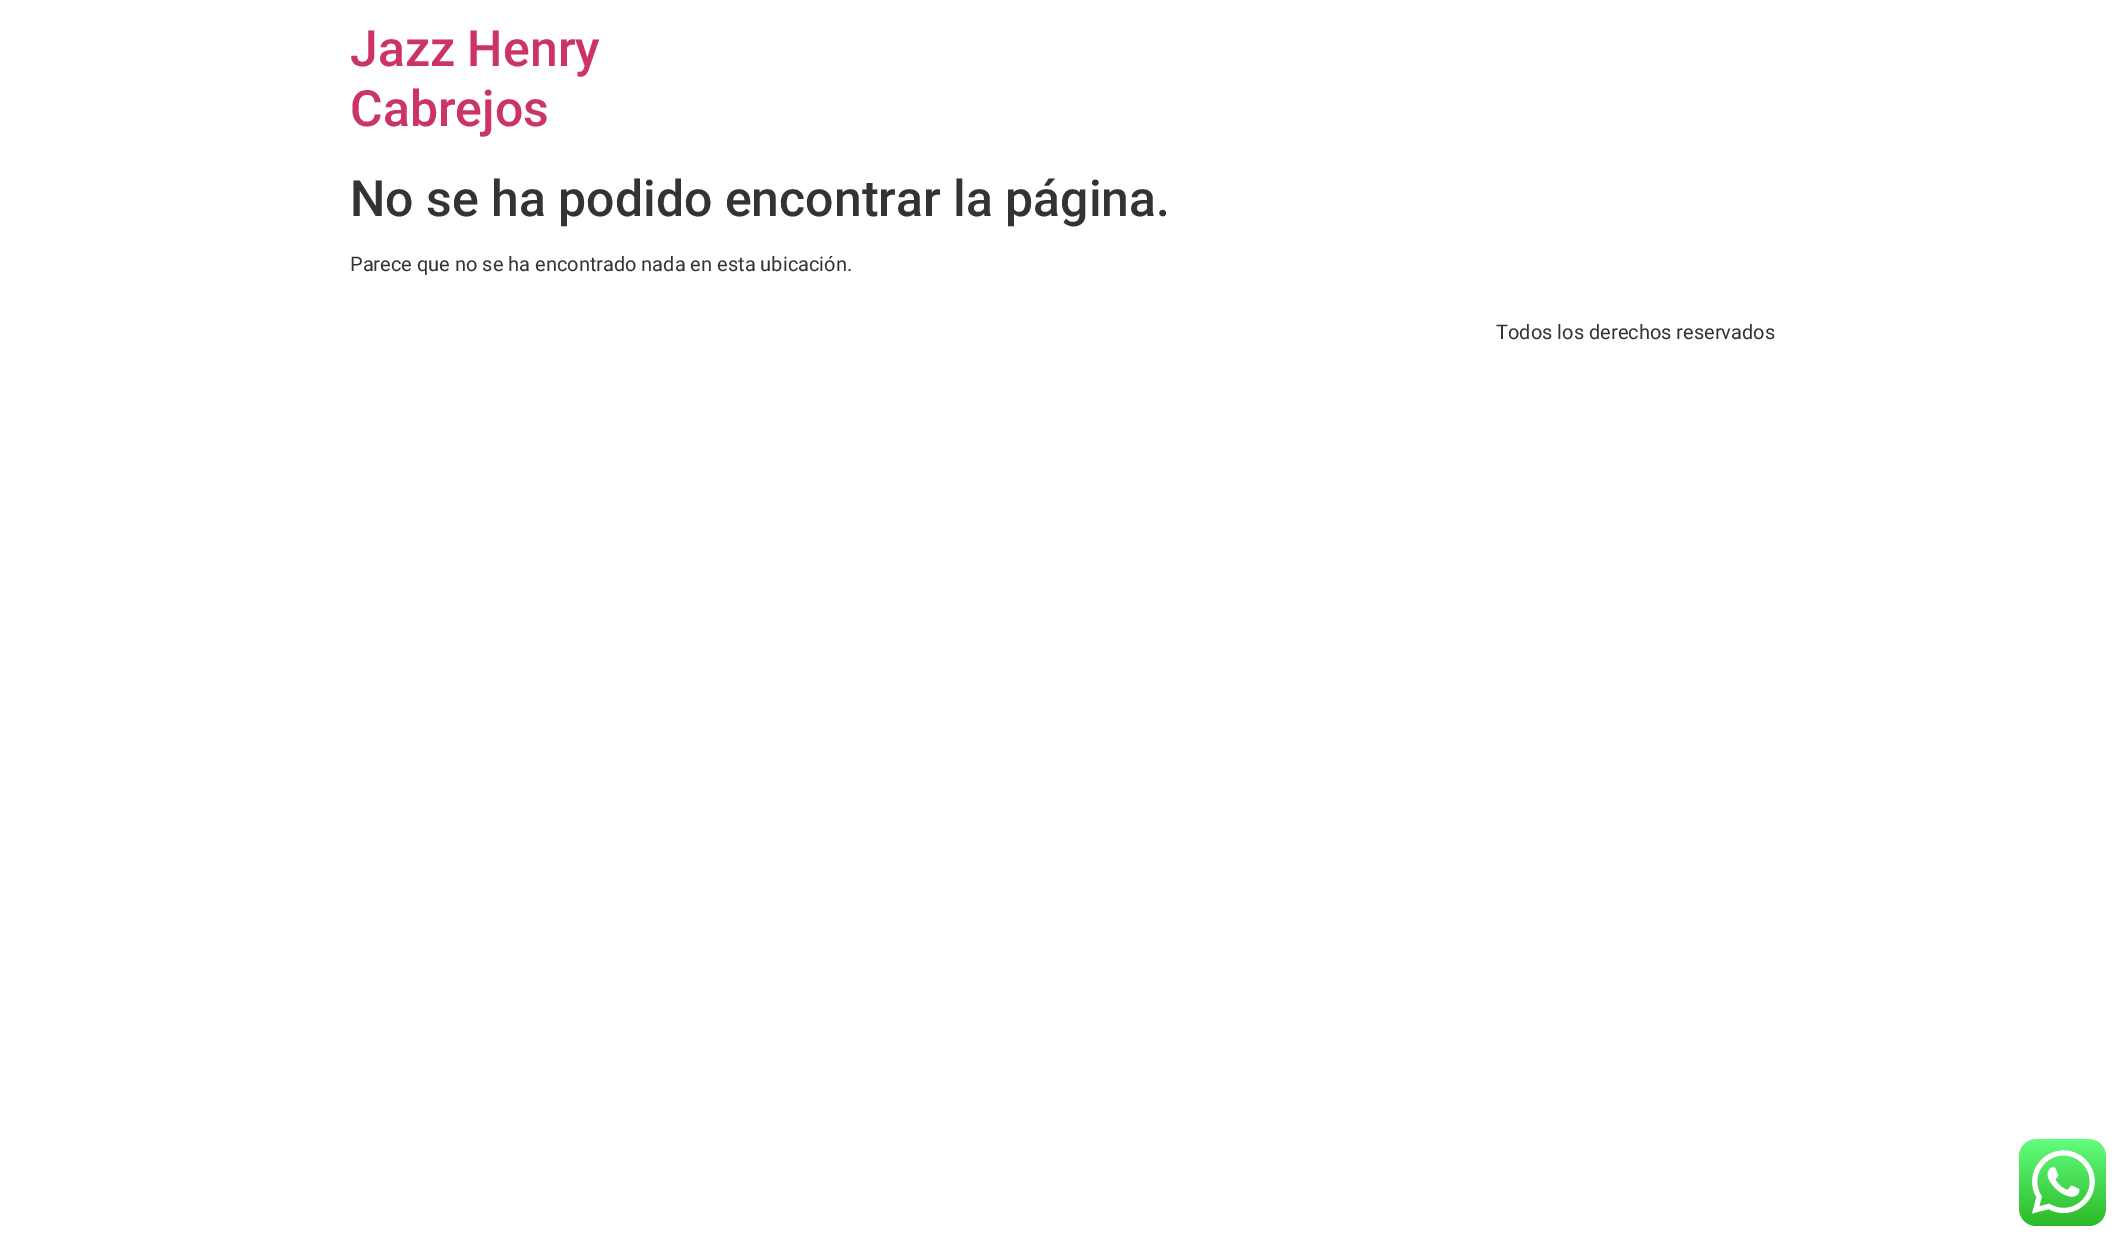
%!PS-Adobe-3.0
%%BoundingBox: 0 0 2125 1245
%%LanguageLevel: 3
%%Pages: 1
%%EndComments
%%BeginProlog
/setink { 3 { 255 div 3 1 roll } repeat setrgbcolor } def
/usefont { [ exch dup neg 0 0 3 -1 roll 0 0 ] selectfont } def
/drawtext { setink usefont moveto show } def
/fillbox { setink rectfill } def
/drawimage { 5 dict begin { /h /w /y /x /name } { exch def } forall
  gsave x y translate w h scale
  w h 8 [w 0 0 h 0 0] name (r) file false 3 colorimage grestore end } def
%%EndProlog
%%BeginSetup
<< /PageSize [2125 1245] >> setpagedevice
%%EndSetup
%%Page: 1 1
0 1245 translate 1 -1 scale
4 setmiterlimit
0 0 2125 1245 255 255 255 fillbox
(Jazz Henry) 350 66 /Roboto-Medium 50 204 51 102 drawtext
(Cabrejos) 350 126 /Roboto-Medium 50 204 51 102 drawtext
(No se ha podido encontrar la página.) 350 216 /Roboto-Medium 50 51 51 51 drawtext
(Parece que no se ha encontrado nada en esta ubicación.) 350 271 /Roboto-Regular 20 51 51 51 drawtext
(Todos los derechos reservados) 1496 339 /Roboto-Regular 20 51 51 51 drawtext
(assets/img1.rgb) 2019 1139 87 87 drawimage
showpage
%%EOF
